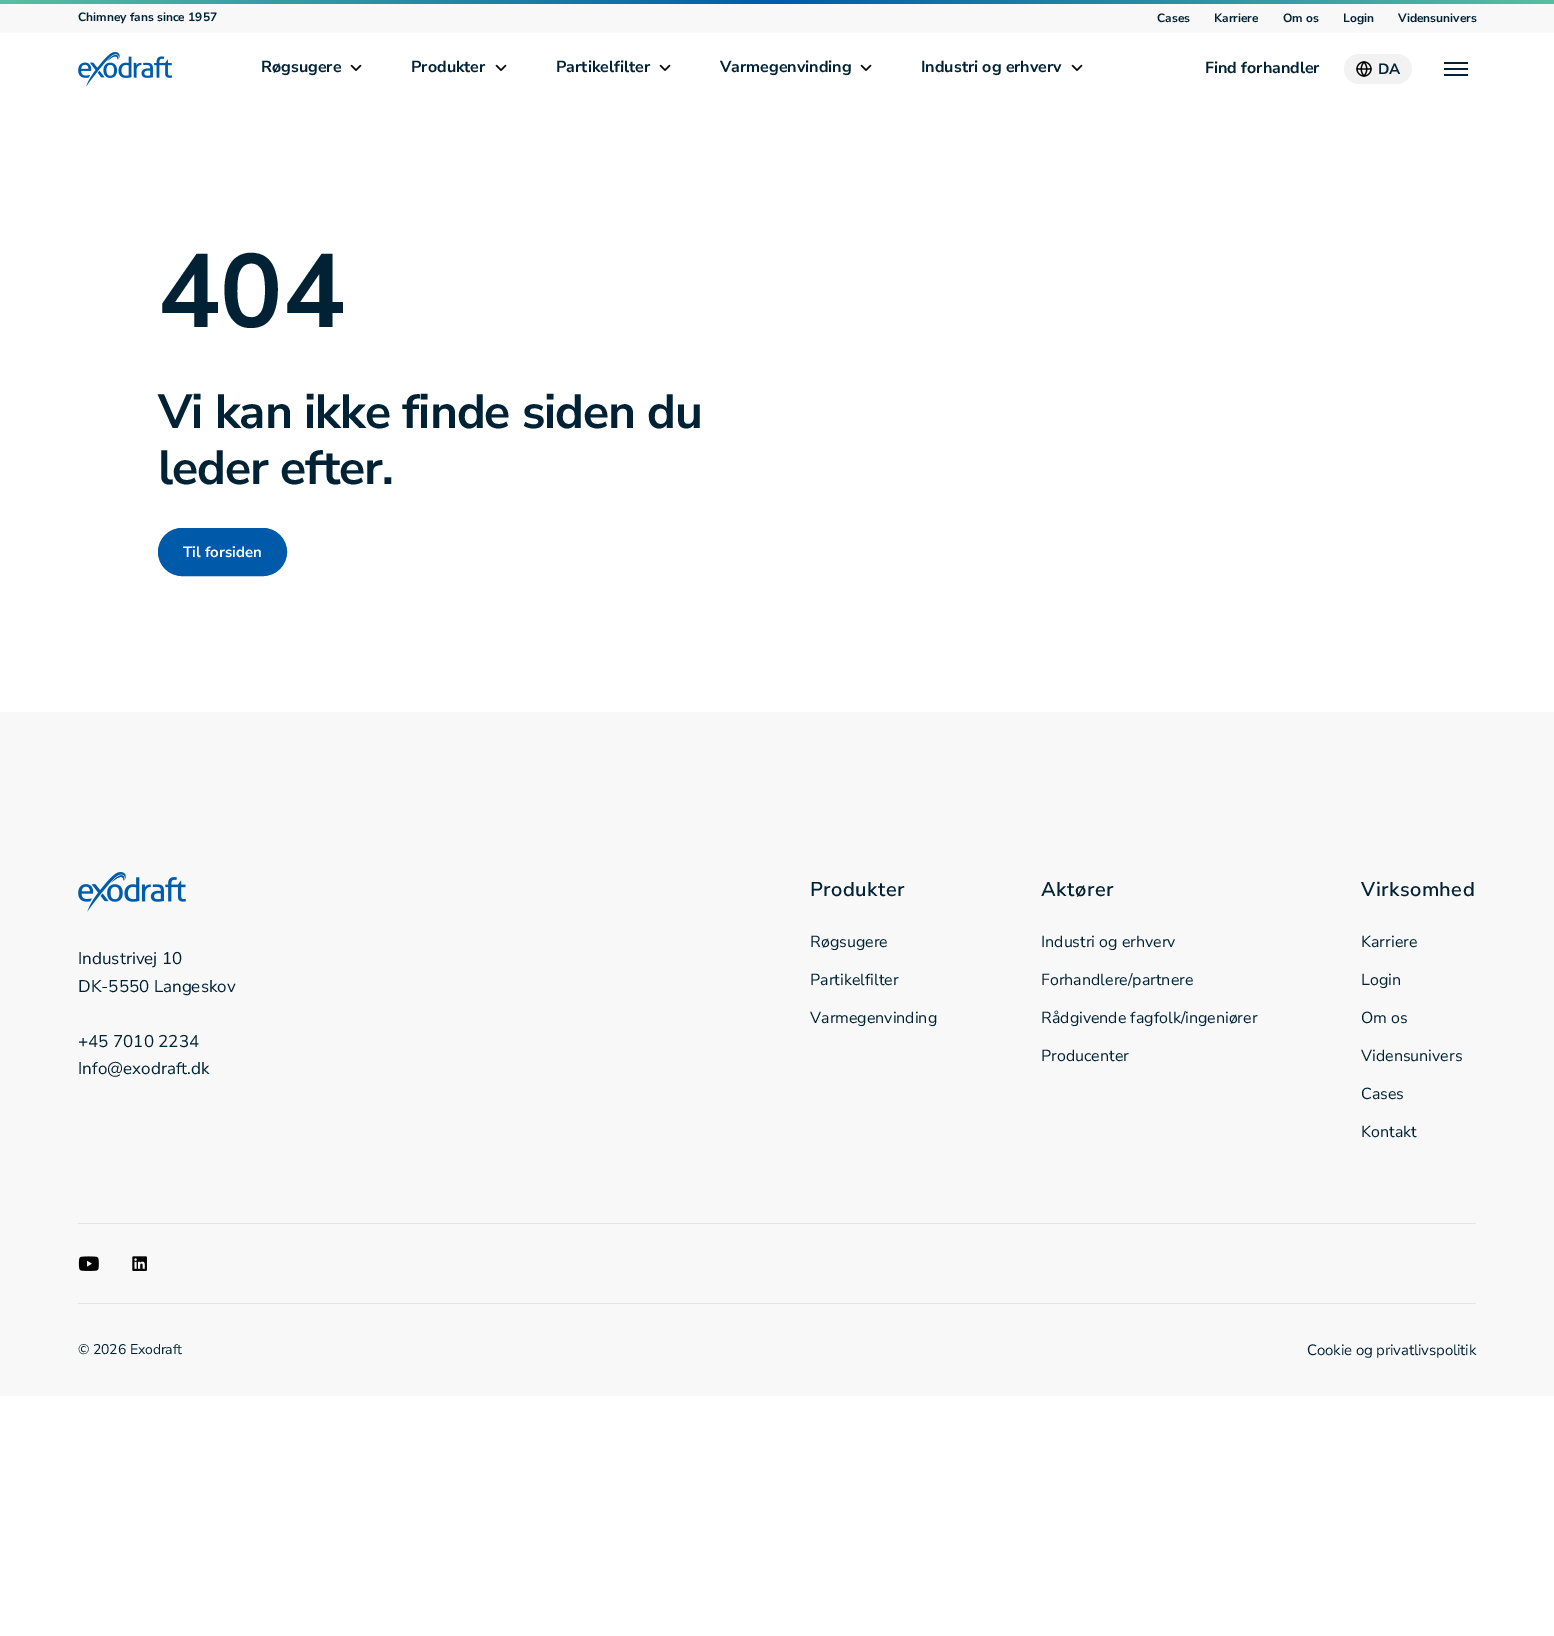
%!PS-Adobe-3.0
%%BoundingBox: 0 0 1554 1636
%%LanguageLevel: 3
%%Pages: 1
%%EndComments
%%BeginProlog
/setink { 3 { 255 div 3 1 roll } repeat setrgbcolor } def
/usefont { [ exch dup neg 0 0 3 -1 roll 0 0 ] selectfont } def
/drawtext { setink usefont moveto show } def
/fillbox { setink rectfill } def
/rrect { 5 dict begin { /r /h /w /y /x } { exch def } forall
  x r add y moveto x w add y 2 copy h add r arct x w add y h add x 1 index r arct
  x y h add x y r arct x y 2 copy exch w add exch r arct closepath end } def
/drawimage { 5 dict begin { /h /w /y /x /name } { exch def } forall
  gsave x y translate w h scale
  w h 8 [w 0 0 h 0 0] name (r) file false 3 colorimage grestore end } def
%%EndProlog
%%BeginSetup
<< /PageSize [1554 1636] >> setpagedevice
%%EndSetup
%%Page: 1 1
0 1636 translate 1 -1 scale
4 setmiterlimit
0 0 1554 1636 255 255 255 fillbox
gsave 0 0 moveto 1554 0 lineto 1554 4 lineto 0 4 lineto closepath clip newpath
<< /ShadingType 2 /ColorSpace /DeviceRGB /Coords [0 2 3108 2] /Extend [true true] /Function << /FunctionType 3 /Domain [0 1] /Functions [<< /FunctionType 2 /Domain [0 1] /C0 [0.333 0.753 0.631] /C1 [0 0.361 0.663] /N 1 >> << /FunctionType 2 /Domain [0 1] /C0 [0 0.361 0.663] /C1 [0.333 0.753 0.631] /N 1 >> << /FunctionType 2 /Domain [0 1] /C0 [0.333 0.753 0.631] /C1 [0 0.361 0.663] /N 1 >> << /FunctionType 2 /Domain [0 1] /C0 [0 0.361 0.663] /C1 [0.333 0.753 0.631] /N 1 >>] /Bounds [0.25 0.5 0.75] /Encode [0 1 0 1 0 1 0 1] >> >> shfill grestore
0 4 1554 29 248 248 248 fillbox
(Chimney fans since 1957) 78 21 /NunitoSans-Bold 12 0 34 52 drawtext
(Cases) 1157 22 /NunitoSans-Bold 12 0 34 52 drawtext
(Karriere) 1214 22 /NunitoSans-Bold 12 0 34 52 drawtext
(Om os) 1283 22 /NunitoSans-Bold 12 0 34 52 drawtext
(Login) 1343 22 /NunitoSans-Bold 12 0 34 52 drawtext
(Vidensunivers) 1398 22 /NunitoSans-Bold 12 0 34 52 drawtext
(assets/img1.rgb) 78 52 94 34 drawimage
(Røgsugere) 261 72 /NunitoSans-Bold 16 0 34 52 drawtext
(assets/img2.rgb) 350 64 12 7 drawimage
(Produkter) 411 72 /NunitoSans-Bold 16 0 34 52 drawtext
(assets/img2.rgb) 495 64 12 7 drawimage
(Partikelfilter) 556 72 /NunitoSans-Bold 16 0 34 52 drawtext
(assets/img2.rgb) 659 64 12 7 drawimage
(Varmegenvinding) 720 72 /NunitoSans-Bold 16 0 34 52 drawtext
(assets/img2.rgb) 860 64 12 7 drawimage
(Industri og erhverv) 921 72 /NunitoSans-Bold 16 0 34 52 drawtext
(assets/img2.rgb) 1071 64 12 7 drawimage
(Find forhandler) 1205 73 /NunitoSans-Bold 16 0 34 52 drawtext
242 242 242 setink
1344 54 68 30 15 rrect fill
(assets/img3.rgb) 1356 61 16 16 drawimage
(DA) 1378 74 /NunitoSans-Bold 15 0 34 52 drawtext
1444 62 24 2 0 33 52 fillbox
1444 68 24 2 0 33 52 fillbox
1444 74 24 2 0 33 52 fillbox
(404) 158 327 /NunitoSans-Bold 104 0 34 52 drawtext
/NunitoSans-Bold 48 usefont
158 428 moveto -0.95 0 (Vi kan ikke finde siden du) ashow
158 484 moveto -0.95 0 (leder efter.) ashow
0 90 170 setink
158.5 528.5 128 47 23.5 rrect gsave fill grestore
stroke
(Til forsiden) 183 557 /NunitoSans-Bold 15 255 255 255 drawtext
0 712 1554 684 248 248 248 fillbox
(assets/img4.rgb) 78 872 108 40 drawimage
(Industrivej 10) 78 964 /NunitoSans-Regular 17 0 34 52 drawtext
(DK-5550 Langeskov) 78 992 /NunitoSans-Regular 17 0 34 52 drawtext
(+45 7010 2234) 78 1047 /NunitoSans-Regular 17 0 34 52 drawtext
(Info@exodraft.dk) 78 1074 /NunitoSans-Regular 17 0 34 52 drawtext
/NunitoSans-SemiBold 20 usefont
810 896 moveto 0.5 0 (Produkter) ashow
(Røgsugere) 810 947 /NunitoSans-Regular 16 0 34 52 drawtext
(Partikelfilter) 810 985 /NunitoSans-Regular 16 0 34 52 drawtext
(Varmegenvinding) 810 1023 /NunitoSans-Regular 16 0 34 52 drawtext
/NunitoSans-SemiBold 20 usefont
1041 896 moveto 0.5 0 (Aktører) ashow
(Industri og erhverv) 1041 947 /NunitoSans-Regular 16 0 34 52 drawtext
(Forhandlere/partnere) 1041 985 /NunitoSans-Regular 16 0 34 52 drawtext
(Rådgivende fagfolk/ingeniører) 1041 1023 /NunitoSans-Regular 16 0 34 52 drawtext
(Producenter) 1041 1061 /NunitoSans-Regular 16 0 34 52 drawtext
/NunitoSans-SemiBold 20 usefont
1361 896 moveto 0.5 0 (Virksomhed) ashow
(Karriere) 1361 947 /NunitoSans-Regular 16 0 34 52 drawtext
(Login) 1361 985 /NunitoSans-Regular 16 0 34 52 drawtext
(Om os) 1361 1023 /NunitoSans-Regular 16 0 34 52 drawtext
(Vidensunivers) 1361 1061 /NunitoSans-Regular 16 0 34 52 drawtext
(Cases) 1361 1099 /NunitoSans-Regular 16 0 34 52 drawtext
(Kontakt) 1361 1137 /NunitoSans-Regular 16 0 34 52 drawtext
78 1223 1398 1 229 229 229 fillbox
(assets/img5.rgb) 78 1256 21 15 drawimage
(assets/img6.rgb) 132 1256 15 15 drawimage
78 1303 1398 1 229 229 229 fillbox
/NunitoSans-Regular 14 usefont
0 34 52 setink
78 1354 moveto -0.1 0 (© 2026 Exodraft) ashow
/NunitoSans-Regular 15 usefont
1307 1355 moveto -0.15 0 (Cookie og privatlivspolitik) ashow
showpage
%%EOF
